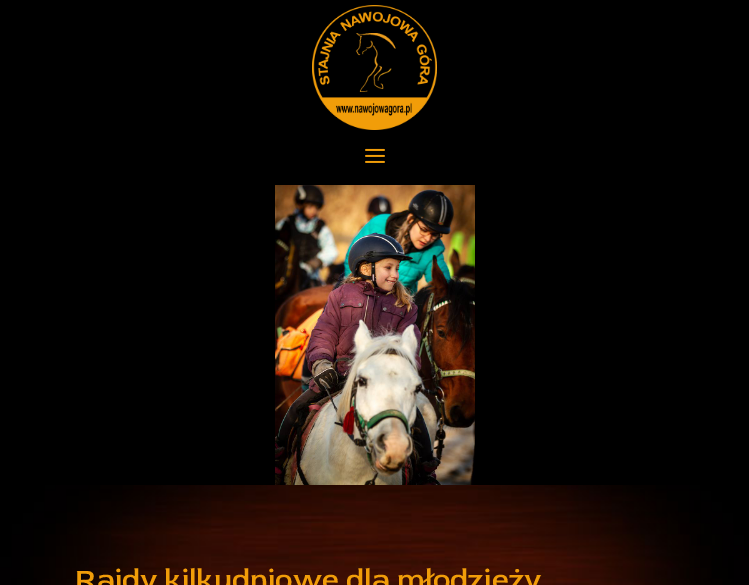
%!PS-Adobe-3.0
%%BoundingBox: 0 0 749 585
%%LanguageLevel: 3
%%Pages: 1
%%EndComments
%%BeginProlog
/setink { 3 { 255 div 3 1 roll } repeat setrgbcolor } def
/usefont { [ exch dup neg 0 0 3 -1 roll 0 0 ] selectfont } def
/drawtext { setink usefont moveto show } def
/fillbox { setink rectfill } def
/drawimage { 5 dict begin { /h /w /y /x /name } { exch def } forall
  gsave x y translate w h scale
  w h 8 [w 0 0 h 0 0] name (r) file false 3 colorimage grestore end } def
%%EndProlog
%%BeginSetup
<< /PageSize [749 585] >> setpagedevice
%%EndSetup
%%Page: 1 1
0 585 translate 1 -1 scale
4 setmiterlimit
0 0 749 585 0 0 0 fillbox
(assets/img1.rgb) 312 5 125 125 drawimage
(assets/img2.rgb) 365 148 20 15 drawimage
(assets/img3.rgb) 275 185 200 300 drawimage
(assets/img4.rgb) 0 485 749 100 drawimage
(Rajdy kilkudniowe dla młodzieży) 75 589 /RedRose-Medium 30 241 157 9 drawtext
showpage
%%EOF
